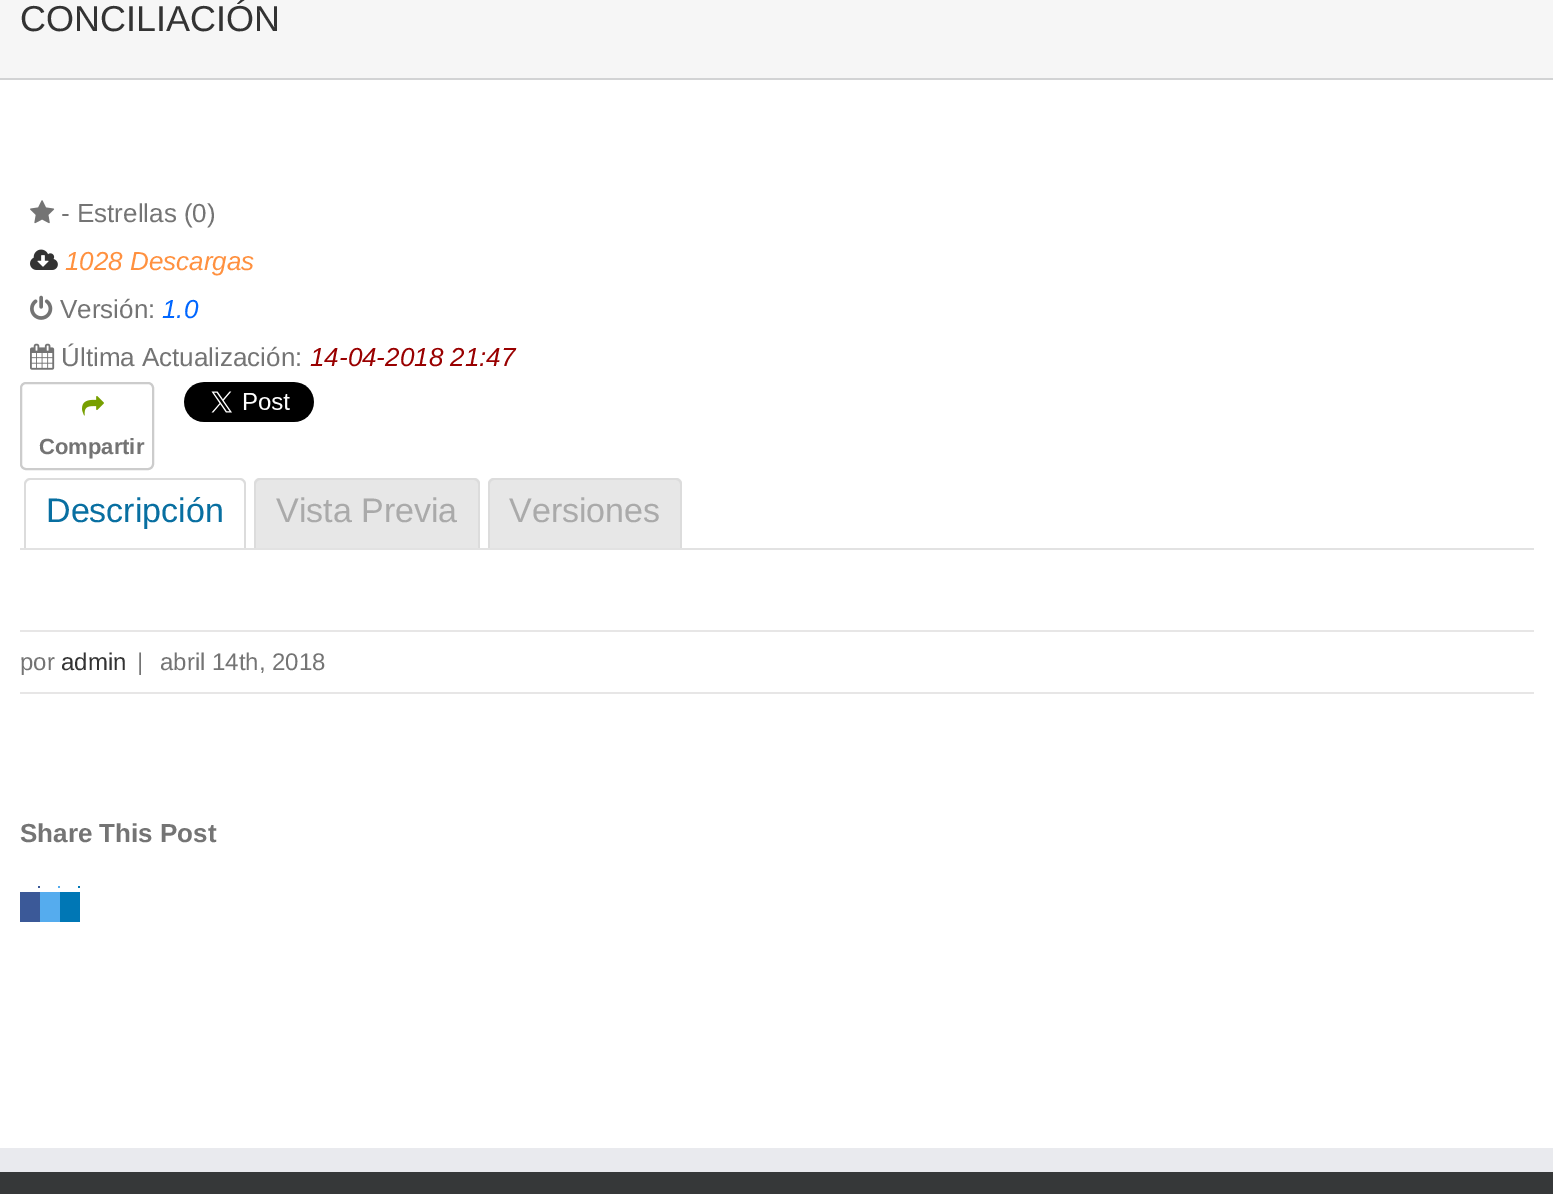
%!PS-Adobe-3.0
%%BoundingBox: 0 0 1553 1194
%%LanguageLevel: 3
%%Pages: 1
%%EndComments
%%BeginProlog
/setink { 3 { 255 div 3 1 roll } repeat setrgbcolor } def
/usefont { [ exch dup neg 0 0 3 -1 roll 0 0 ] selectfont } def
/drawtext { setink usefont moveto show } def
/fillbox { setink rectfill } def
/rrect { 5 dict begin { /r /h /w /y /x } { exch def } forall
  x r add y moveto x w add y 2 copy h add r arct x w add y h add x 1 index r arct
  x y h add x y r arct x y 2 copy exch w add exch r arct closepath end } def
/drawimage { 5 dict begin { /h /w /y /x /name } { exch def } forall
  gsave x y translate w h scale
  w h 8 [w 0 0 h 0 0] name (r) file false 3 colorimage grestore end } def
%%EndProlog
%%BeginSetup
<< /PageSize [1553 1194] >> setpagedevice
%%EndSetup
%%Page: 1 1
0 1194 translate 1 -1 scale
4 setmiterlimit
0 0 1553 1194 255 255 255 fillbox
0 0 1553 78 246 246 246 fillbox
0 78 1553 2 210 211 212 fillbox
(CONCILIACIÓN) 20 31 /LiberationSans-Regular 36 51 51 51 drawtext
(assets/img1.rgb) 30 200 25 24 drawimage
(- Estrellas \(0\)) 61 222 /LiberationSans-Regular 26 116 116 116 drawtext
(assets/img2.rgb) 30 249 28 21 drawimage
(1028 Descargas) 65 270 /LiberationSans-Italic 26 255 145 64 drawtext
(assets/img3.rgb) 30 295 23 25 drawimage
(Versión:) 60 318 /LiberationSans-Regular 26 116 116 116 drawtext
(1.0) 162 318 /LiberationSans-Italic 26 0 102 255 drawtext
(assets/img4.rgb) 30 343 25 27 drawimage
(Última Actualización:) 61 366 /LiberationSans-Regular 26 116 116 116 drawtext
(14-04-2018 21:47) 310 366 /LiberationSans-Italic 26 153 0 0 drawtext
(assets/img5.rgb) 184 382 130 40 drawimage
204 204 204 setink
2 setlinewidth
21 383 132 86 5 rrect stroke
(assets/img6.rgb) 82 396 22 20 drawimage
(Compartir) 39 454 /LiberationSans-Bold 22 116 116 116 drawtext
220 220 220 setink
30 478 moveto 240 478 lineto 243 478 246 481 246 484 curveto 246 548 lineto 24 548 lineto 24 484 lineto 24 481 27 478 30 478 curveto closepath 30 480 moveto 240 480 lineto 242 480 244 482 244 484 curveto 244 548 lineto 26 548 lineto 26 484 lineto 26 482 28 480 30 480 curveto closepath eofill
(Descripción) 46 522 /LiberationSans-Regular 34 8 111 161 drawtext
231 231 231 setink
260 478 moveto 474 478 lineto 477.5 478 480 480.5 480 484 curveto 480 548 lineto 254 548 lineto 254 484 lineto 254 480.5 256.5 478 260 478 curveto closepath fill
220 220 220 setink
260 478 moveto 474 478 lineto 477 478 480 481 480 484 curveto 480 548 lineto 254 548 lineto 254 484 lineto 254 481 257 478 260 478 curveto closepath 260 480 moveto 474 480 lineto 476 480 478 482 478 484 curveto 478 548 lineto 256 548 lineto 256 484 lineto 256 482 258 480 260 480 curveto closepath eofill
(Vista Previa) 276 522 /LiberationSans-Regular 34 170 170 170 drawtext
231 231 231 setink
494 478 moveto 676 478 lineto 679.5 478 682 480.5 682 484 curveto 682 548 lineto 488 548 lineto 488 484 lineto 488 480.5 490.5 478 494 478 curveto closepath fill
220 220 220 setink
494 478 moveto 676 478 lineto 679 478 682 481 682 484 curveto 682 548 lineto 488 548 lineto 488 484 lineto 488 481 491 478 494 478 curveto closepath 494 480 moveto 676 480 lineto 678 480 680 482 680 484 curveto 680 548 lineto 490 548 lineto 490 484 lineto 490 482 492 480 494 480 curveto closepath eofill
(Versiones) 509 522 /LiberationSans-Regular 34 170 170 170 drawtext
20 548 1514 2 226 226 226 fillbox
20 630 1514 2 231 230 230 fillbox
20 692 1514 2 231 230 230 fillbox
(por) 20 670 /LiberationSans-Regular 24 116 116 116 drawtext
(admin) 61 670 /LiberationSans-Regular 24 51 51 51 drawtext
(|) 137 670 /LiberationSans-Regular 24 116 116 116 drawtext
(abril 14th, 2018) 160 670 /LiberationSans-Regular 24 116 116 116 drawtext
(Share This Post) 20 842 /LiberationSans-Bold 26 116 116 116 drawtext
38 886 2 2 59 89 152 fillbox
58 886 2 2 85 172 238 fillbox
78 886 2 2 0 119 181 fillbox
20 892 20 30 59 89 152 fillbox
40 892 20 30 85 172 238 fillbox
60 892 20 30 0 119 181 fillbox
0 1172 1553 22 54 56 57 fillbox
0 1148 1553 24 233 234 238 fillbox
showpage
%%EOF
